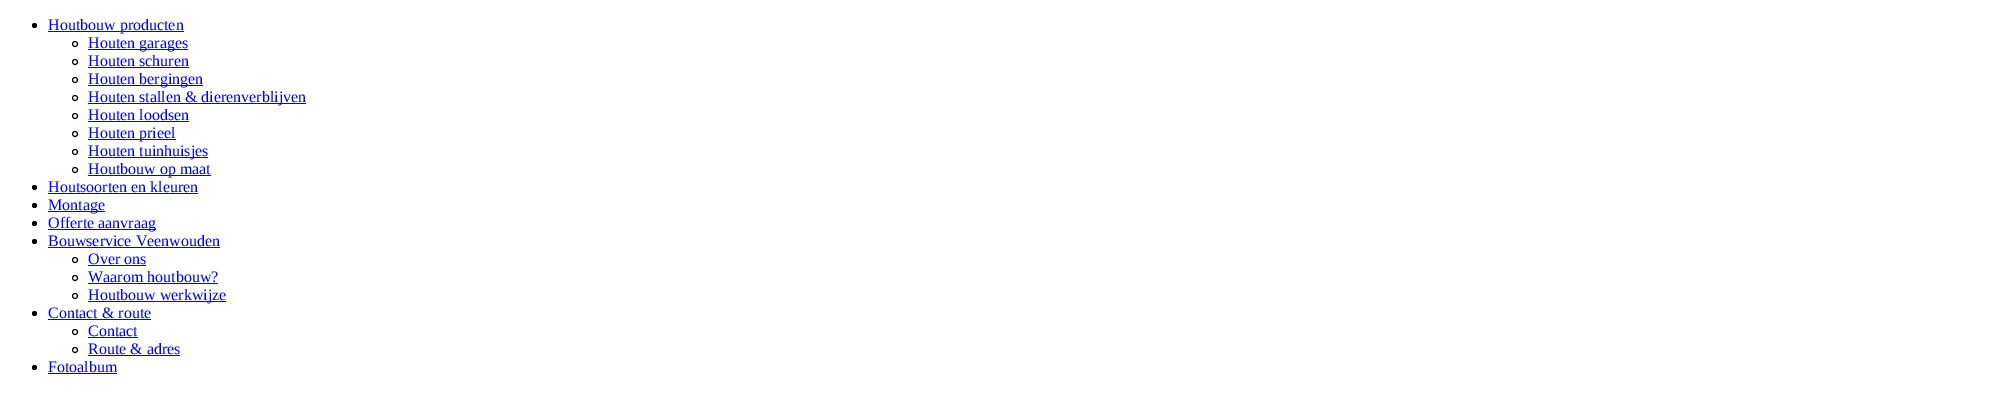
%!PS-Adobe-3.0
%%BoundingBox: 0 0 2008 419
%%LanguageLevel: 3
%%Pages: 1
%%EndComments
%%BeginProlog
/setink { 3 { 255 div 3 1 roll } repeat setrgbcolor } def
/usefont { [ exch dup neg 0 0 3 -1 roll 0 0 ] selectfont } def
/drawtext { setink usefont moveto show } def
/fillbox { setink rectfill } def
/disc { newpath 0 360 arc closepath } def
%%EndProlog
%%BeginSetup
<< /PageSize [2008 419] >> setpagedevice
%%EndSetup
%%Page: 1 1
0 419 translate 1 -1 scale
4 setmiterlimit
0 0 2008 419 255 255 255 fillbox
0 0 0 setink
34.5 25.5 2.5 disc fill
48 31 136 1 0 0 238 fillbox
(Houtbouw producten) 48 30 /LiberationSerif-Regular 16 0 0 238 drawtext
0 0 0 setink
75 44 2.5 disc stroke
88 49 100 1 0 0 238 fillbox
(Houten garages) 88 48 /LiberationSerif-Regular 16 0 0 238 drawtext
0 0 0 setink
75 62 2.5 disc stroke
(Houten schuren) 88 66 /LiberationSerif-Regular 16 0 0 238 drawtext
88 67 101 1 0 0 238 fillbox
0 0 0 setink
75 80 2.5 disc stroke
88 85 115 1 0 0 238 fillbox
(Houten bergingen) 88 84 /LiberationSerif-Regular 16 0 0 238 drawtext
0 0 0 setink
75 98 2.5 disc stroke
88 103 218 1 0 0 238 fillbox
(Houten stallen & dierenverblijven) 88 102 /LiberationSerif-Regular 16 0 0 238 drawtext
0 0 0 setink
75 116 2.5 disc stroke
(Houten loodsen) 88 120 /LiberationSerif-Regular 16 0 0 238 drawtext
88 121 101 1 0 0 238 fillbox
0 0 0 setink
75 134 2.5 disc stroke
88 139 88 1 0 0 238 fillbox
(Houten prieel) 88 138 /LiberationSerif-Regular 16 0 0 238 drawtext
0 0 0 setink
75 152 2.5 disc stroke
88 157 120 1 0 0 238 fillbox
(Houten tuinhuisjes) 88 156 /LiberationSerif-Regular 16 0 0 238 drawtext
0 0 0 setink
75 170 2.5 disc stroke
88 175 123 1 0 0 238 fillbox
(Houtbouw op maat) 88 174 /LiberationSerif-Regular 16 0 0 238 drawtext
0 0 0 setink
34.5 187.5 2.5 disc fill
(Houtsoorten en kleuren) 48 192 /LiberationSerif-Regular 16 0 0 238 drawtext
48 193 150 1 0 0 238 fillbox
0 0 0 setink
34.5 205.5 2.5 disc fill
48 211 57 1 0 0 238 fillbox
(Montage) 48 210 /LiberationSerif-Regular 16 0 0 238 drawtext
0 0 0 setink
34.5 223.5 2.5 disc fill
48 229 108 1 0 0 238 fillbox
(Offerte aanvraag) 48 228 /LiberationSerif-Regular 16 0 0 238 drawtext
0 0 0 setink
34.5 241.5 2.5 disc fill
(Bouwservice Veenwouden) 48 246 /LiberationSerif-Regular 16 0 0 238 drawtext
48 247 172 1 0 0 238 fillbox
0 0 0 setink
75 260 2.5 disc stroke
(Over ons) 88 264 /LiberationSerif-Regular 16 0 0 238 drawtext
88 265 58 1 0 0 238 fillbox
0 0 0 setink
75 278 2.5 disc stroke
(Waarom houtbouw?) 88 282 /LiberationSerif-Regular 16 0 0 238 drawtext
88 283 130 1 0 0 238 fillbox
0 0 0 setink
75 296 2.5 disc stroke
88 301 138 1 0 0 238 fillbox
(Houtbouw werkwijze) 88 300 /LiberationSerif-Regular 16 0 0 238 drawtext
0 0 0 setink
34.5 313.5 2.5 disc fill
(Contact & route) 48 318 /LiberationSerif-Regular 16 0 0 238 drawtext
48 319 103 1 0 0 238 fillbox
0 0 0 setink
75 332 2.5 disc stroke
(Contact) 88 336 /LiberationSerif-Regular 16 0 0 238 drawtext
88 337 50 1 0 0 238 fillbox
0 0 0 setink
75 350 2.5 disc stroke
(Route & adres) 88 354 /LiberationSerif-Regular 16 0 0 238 drawtext
88 355 92 1 0 0 238 fillbox
0 0 0 setink
34.5 367.5 2.5 disc fill
(Fotoalbum) 48 372 /LiberationSerif-Regular 16 0 0 238 drawtext
48 373 69 1 0 0 238 fillbox
showpage
%%EOF
